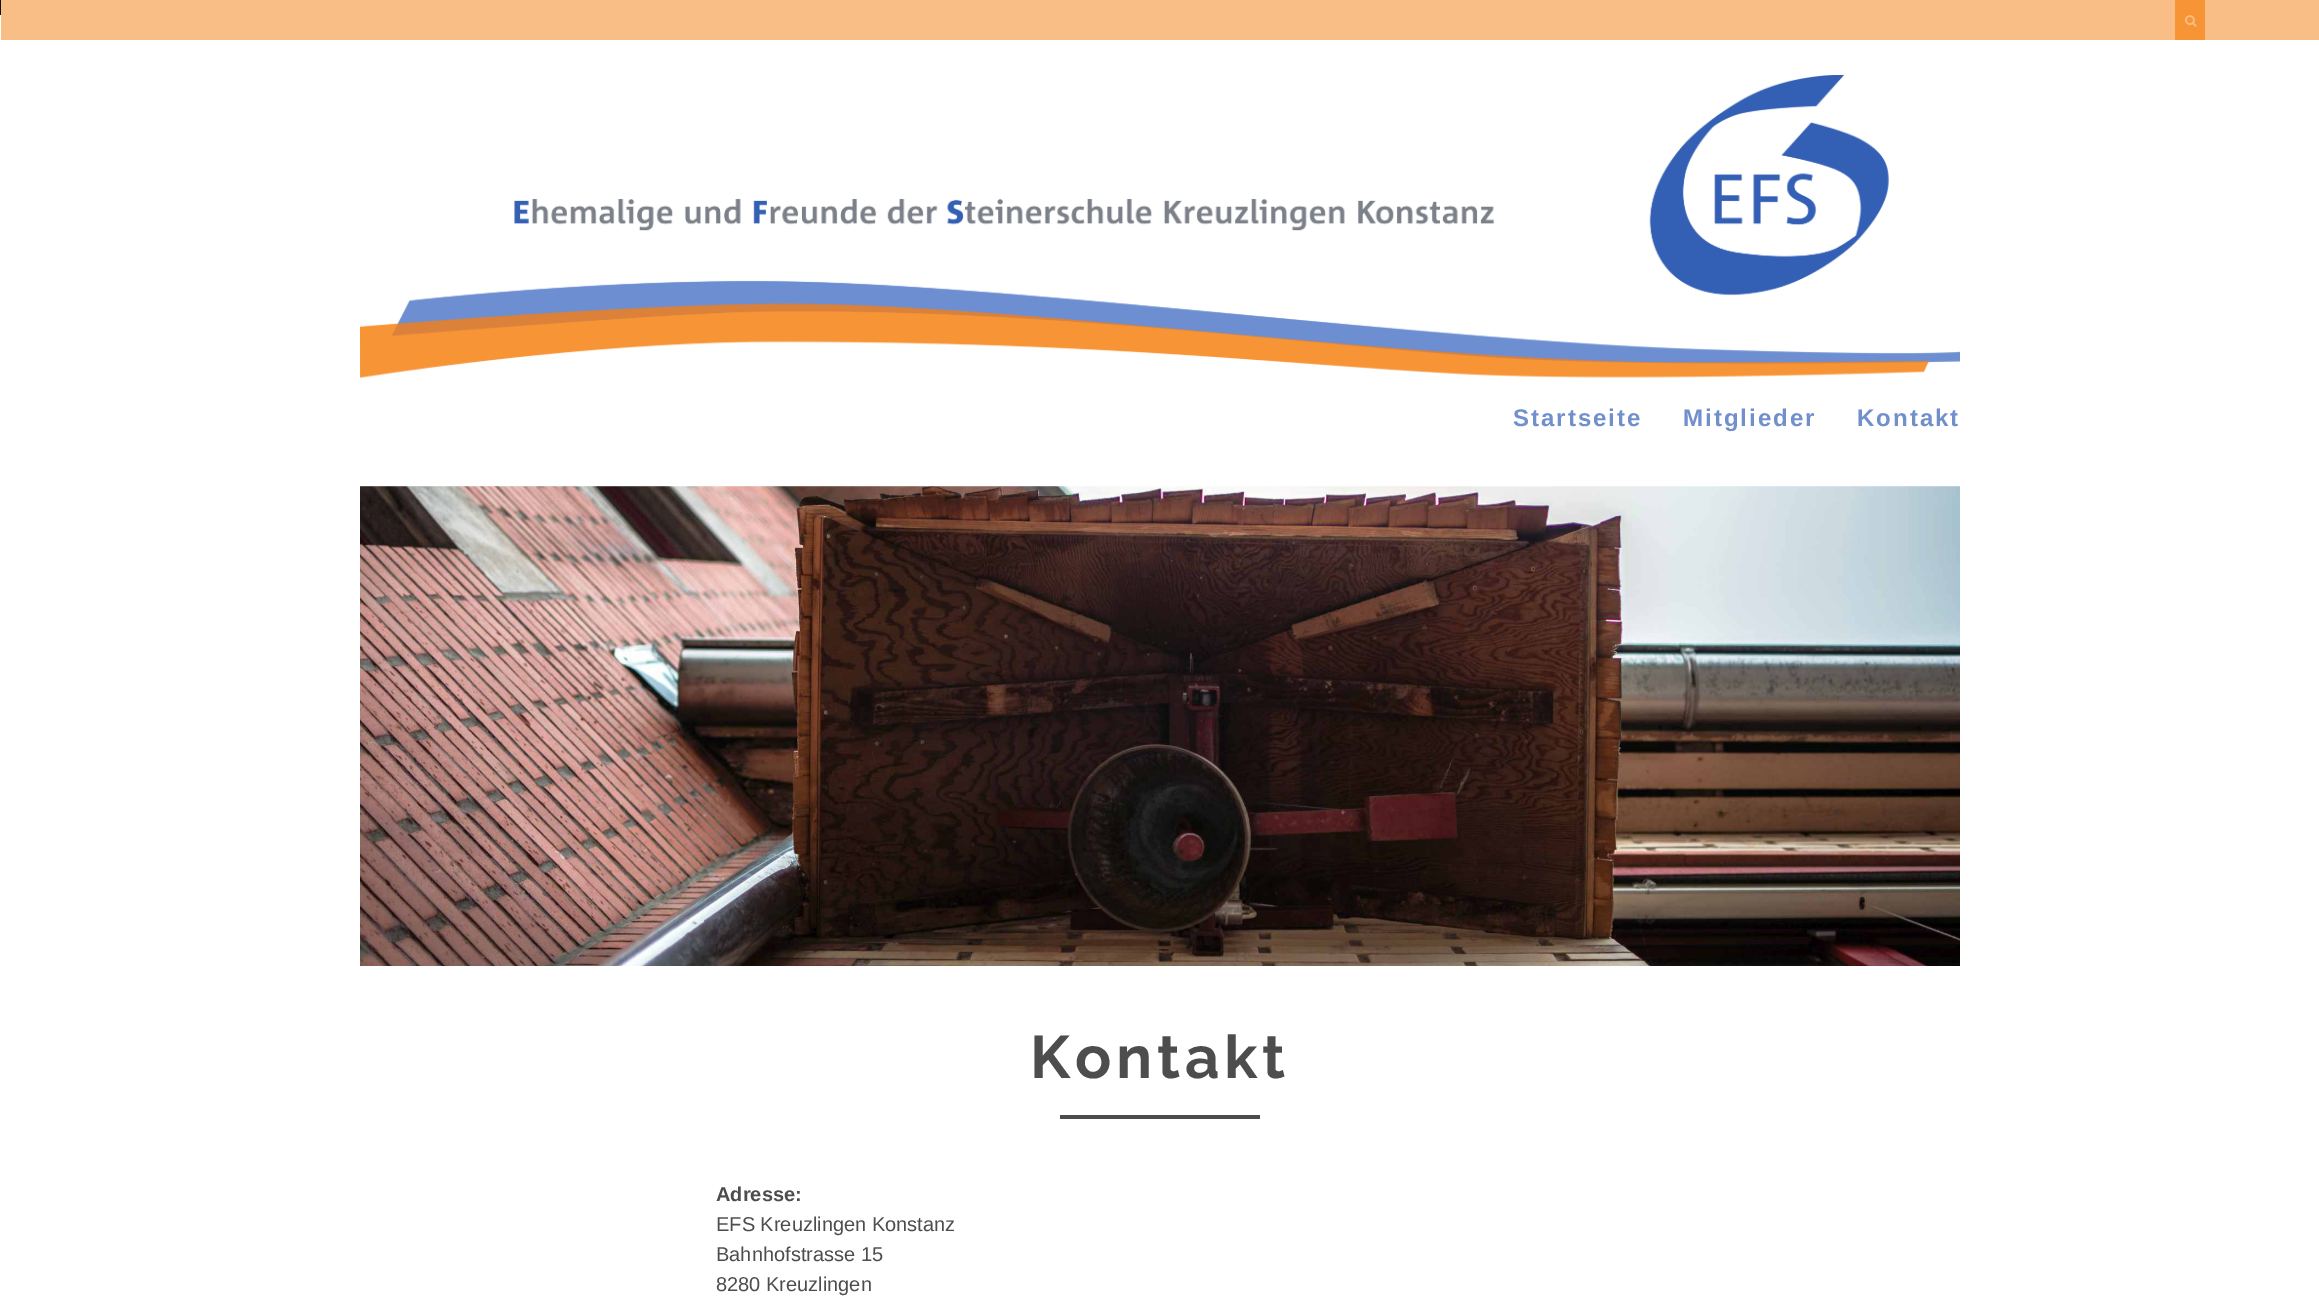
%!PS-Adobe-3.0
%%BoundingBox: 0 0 2319 1312
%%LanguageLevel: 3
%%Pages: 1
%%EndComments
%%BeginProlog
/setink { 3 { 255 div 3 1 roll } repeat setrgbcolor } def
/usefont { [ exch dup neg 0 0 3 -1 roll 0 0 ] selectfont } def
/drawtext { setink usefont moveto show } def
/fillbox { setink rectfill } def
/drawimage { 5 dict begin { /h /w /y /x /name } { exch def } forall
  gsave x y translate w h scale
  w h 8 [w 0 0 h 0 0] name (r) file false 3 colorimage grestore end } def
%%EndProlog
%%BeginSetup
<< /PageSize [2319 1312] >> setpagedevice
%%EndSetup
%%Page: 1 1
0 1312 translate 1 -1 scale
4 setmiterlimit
0 0 2319 1312 255 255 255 fillbox
0 0 1 15 17 17 17 fillbox
1 0 2318 40 249 190 134 fillbox
2175 0 30 40 247 148 54 fillbox
(assets/img1.rgb) 2185 15 12 12 drawimage
(assets/img2.rgb) 360 75 1600 303 drawimage
/LiberationSans-Bold 24 usefont
112 143 203 setink
1513 426 moveto 2 0 (Startseite) ashow
1683 426 moveto 2 0 (Mitglieder) ashow
1857 426 moveto 2 0 (Kontakt) ashow
(assets/img3.rgb) 360 486 1600 480 drawimage
/Raleway-Bold 60 usefont
77 77 77 setink
1030 1078 moveto 4.75 0 (Kontakt) ashow
1060 1115 200 4 77 77 77 fillbox
(Adresse:) 716 1201 /LiberationSans-Bold 20 77 77 77 drawtext
(EFS Kreuzlingen Konstanz) 716 1231 /LiberationSans-Regular 20 77 77 77 drawtext
(Bahnhofstrasse 15) 716 1261 /LiberationSans-Regular 20 77 77 77 drawtext
(8280 Kreuzlingen) 716 1291 /LiberationSans-Regular 20 77 77 77 drawtext
showpage
%%EOF
